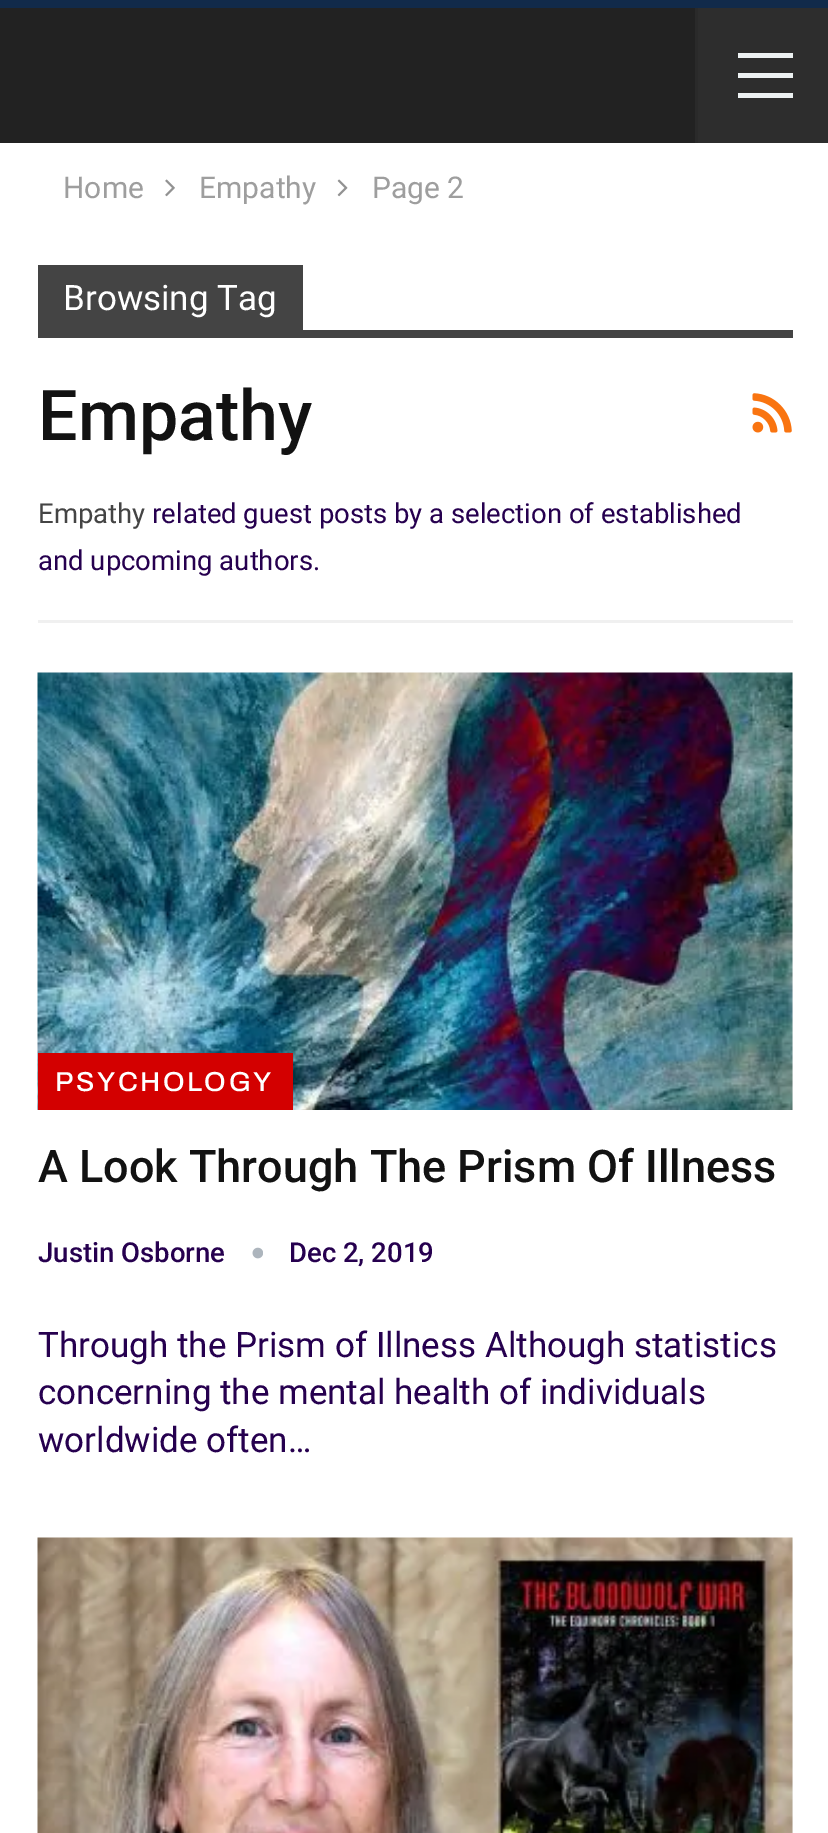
%!PS-Adobe-3.0
%%BoundingBox: 0 0 828 1833
%%LanguageLevel: 3
%%Pages: 1
%%EndComments
%%BeginProlog
/setink { 3 { 255 div 3 1 roll } repeat setrgbcolor } def
/usefont { [ exch dup neg 0 0 3 -1 roll 0 0 ] selectfont } def
/drawtext { setink usefont moveto show } def
/fillbox { setink rectfill } def
/drawimage { 5 dict begin { /h /w /y /x /name } { exch def } forall
  gsave x y translate w h scale
  w h 8 [w 0 0 h 0 0] name (r) file false 3 colorimage grestore end } def
%%EndProlog
%%BeginSetup
<< /PageSize [828 1833] >> setpagedevice
%%EndSetup
%%Page: 1 1
0 1833 translate 1 -1 scale
4 setmiterlimit
0 0 828 1833 17 42 74 fillbox
0 143 828 1690 255 255 255 fillbox
0 8 695 135 34 34 34 fillbox
698 8 130 135 45 45 45 fillbox
695 8 3 135 42 42 42 fillbox
738 73 55 5 236 240 241 fillbox
738 53 55 5 236 240 241 fillbox
738 93 55 5 236 240 241 fillbox
(Home) 63 198 /Roboto-Regular 30 158 158 158 drawtext
(assets/img1.rgb) 165 179 10 18 drawimage
(Empathy) 199 198 /Roboto-Regular 30 158 158 158 drawtext
(assets/img2.rgb) 337 179 11 18 drawimage
(Page 2) 372 198 /Roboto-Regular 30 158 158 158 drawtext
38 620 755 3 240 240 240 fillbox
38 265 265 65 68 68 68 fillbox
(Browsing Tag) 63 310 /Roboto-Regular 35 255 255 255 drawtext
38 330 755 8 68 68 68 fillbox
(Empathy) 38 440 /Roboto-Medium 70 18 18 18 drawtext
(assets/img3.rgb) 752 393 40 40 drawimage
(Empathy) 38 523 /Roboto-Regular 27.5 68 68 68 drawtext
(related guest posts by a selection of established) 152 523 /Roboto-Regular 27.5 38 0 79 drawtext
(and upcoming authors.) 38 570 /Roboto-Regular 27.5 38 0 79 drawtext
792 673 1 437 245 245 245 fillbox
(assets/img4.rgb) 37 672 756 438 drawimage
38 1053 255 57 211 0 0 fillbox
/Archivo-Medium 27.5 usefont
255 255 255 setink
55 1091 moveto 2.5 0 (PSYCHOLOGY) ashow
(A Look Through The Prism Of Illness) 38 1182 /Roboto-Medium 45 18 18 18 drawtext
(Justin Osborne) 38 1262 /Roboto-Medium 27.5 38 0 79 drawtext
(assets/img5.rgb) 252 1247 11 12 drawimage
(Dec 2, 2019) 289 1262 /Roboto-Medium 27.5 38 0 79 drawtext
(Through the Prism of Illness Although statistics) 38 1357 /Roboto-Regular 35 38 0 79 drawtext
(concerning the mental health of individuals) 38 1404 /Roboto-Regular 35 38 0 79 drawtext
(worldwide often…) 38 1452 /Roboto-Regular 35 38 0 79 drawtext
792 1538 1 295 245 245 245 fillbox
(assets/img6.rgb) 37 1537 756 296 drawimage
showpage
%%EOF
